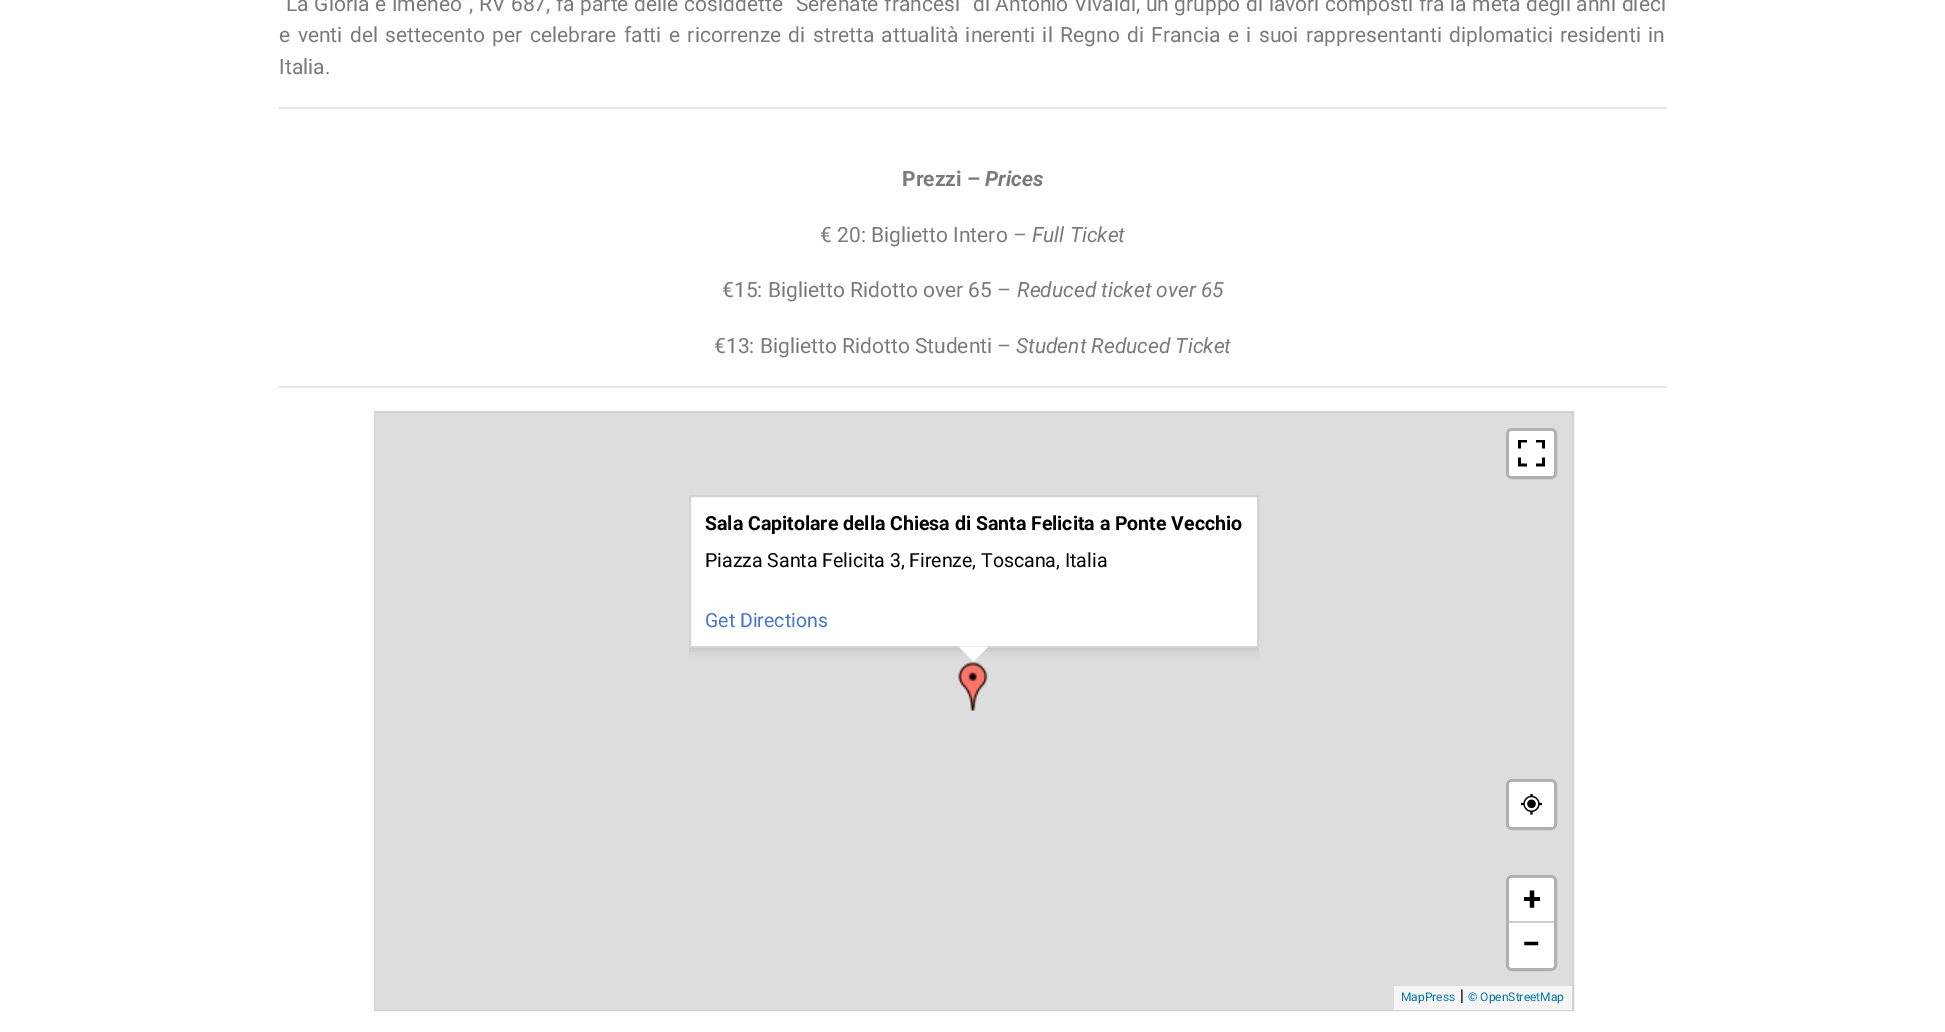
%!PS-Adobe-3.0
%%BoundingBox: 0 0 1945 1032
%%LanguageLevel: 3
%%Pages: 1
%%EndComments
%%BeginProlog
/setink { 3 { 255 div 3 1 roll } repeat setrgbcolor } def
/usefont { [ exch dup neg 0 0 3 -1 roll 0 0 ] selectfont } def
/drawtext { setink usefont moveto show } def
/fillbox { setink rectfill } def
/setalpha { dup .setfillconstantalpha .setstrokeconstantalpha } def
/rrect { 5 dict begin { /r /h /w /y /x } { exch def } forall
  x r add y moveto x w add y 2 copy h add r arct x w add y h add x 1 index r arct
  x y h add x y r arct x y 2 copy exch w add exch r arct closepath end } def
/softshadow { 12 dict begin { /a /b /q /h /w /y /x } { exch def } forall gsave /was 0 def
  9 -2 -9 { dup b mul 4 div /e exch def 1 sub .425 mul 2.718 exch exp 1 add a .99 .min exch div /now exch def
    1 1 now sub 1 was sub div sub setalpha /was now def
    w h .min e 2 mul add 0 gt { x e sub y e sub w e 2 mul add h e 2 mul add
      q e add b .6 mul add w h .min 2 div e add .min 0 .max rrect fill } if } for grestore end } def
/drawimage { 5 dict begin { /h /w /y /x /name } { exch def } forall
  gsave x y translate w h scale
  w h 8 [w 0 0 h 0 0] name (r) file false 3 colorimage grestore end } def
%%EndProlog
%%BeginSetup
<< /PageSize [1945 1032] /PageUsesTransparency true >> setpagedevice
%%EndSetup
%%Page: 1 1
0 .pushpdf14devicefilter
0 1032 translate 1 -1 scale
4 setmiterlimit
0 0 1945 1032 255 255 255 fillbox
/Roboto-Regular 21 usefont
122 122 122 setink
286 11 moveto 0.4 0 32 (La Gloria e Imeneo”, RV 687, fa parte delle cosiddette “Serenate francesi” di Antonio Vivaldi, un gruppo di lavori composti fra la metà degli anni dieci) widthshow
279 42 moveto 2.2 0 32 (e venti del settecento per celebrare fatti e ricorrenze di stretta attualità inerenti il Regno di Francia e i suoi rappresentanti diplomatici residenti in) widthshow
(Italia.) 279 74 /Roboto-Regular 21 122 122 122 drawtext
279 107 1388 2 225 231 236 fillbox
(Prezzi –) 902 186 /Roboto-Bold 21 122 122 122 drawtext
(Prices) 985 186 /Roboto-BoldItalic 21 122 122 122 drawtext
(€ 20: Biglietto Intero –) 820 242 /Roboto-Regular 21 122 122 122 drawtext
(Full Ticket) 1032 242 /Roboto-Italic 21 122 122 122 drawtext
(€15: Biglietto Ridotto over 65 –) 722 297 /Roboto-Regular 21 122 122 122 drawtext
(Reduced ticket over 65) 1017 297 /Roboto-Italic 21 122 122 122 drawtext
(€13: Biglietto Ridotto Studenti –) 714 353 /Roboto-Regular 21 122 122 122 drawtext
(Student Reduced Ticket) 1016 353 /Roboto-Italic 21 122 122 122 drawtext
279 386 1388 2 225 231 236 fillbox
211 211 211 setink
2 setlinewidth
375 412 1198 598 rectstroke
375 413 1197 597 221 221 221 fillbox
177 177 177 setink
3 setlinewidth
1507.5 429.5 48 48 4.5 rrect stroke
255 255 255 setink
1509 431 45 45 3 rrect fill
(assets/img1.rgb) 1518 440 27 27 drawimage
(assets/img3.rgb) 958 662 30 49 drawimage
gsave
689 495 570 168 rectclip
0 0 0 setink
689 495 570 153 0 5 0.2 softshadow
grestore
690 496 moveto 1258 496 lineto 1258 647 lineto 690 647 lineto closepath gsave fill grestore
211 211 211 setink
2 setlinewidth
stroke
(Sala Capitolare della Chiesa di Santa Felicita a Ponte Vecchio) 705 530 /Roboto-Bold 19.5 0 0 0 drawtext
(Piazza Santa Felicita 3, Firenze, Toscana, Italia) 705 567 /Roboto-Regular 19.5 0 0 0 drawtext
(Get Directions) 705 627 /Roboto-Regular 19.5 66 114 219 drawtext
255 255 255 setink
958.5 646.5 moveto 988.5 646.5 lineto 973.5 661.5 lineto closepath fill
177 177 177 setink
3 setlinewidth
1507.5 780.5 48 48 4.5 rrect stroke
255 255 255 setink
1509 782 45 45 3 rrect fill
(assets/img2.rgb) 1521 794 21 21 drawimage
177 177 177 setink
1507.5 876.5 48 93 4.5 rrect stroke
255 255 255 setink
1512 878 moveto 1551 878 lineto 1552.5 878 1554 879.5 1554 881 curveto 1554 923 lineto 1509 923 lineto 1509 881 lineto 1509 879.5 1510.5 878 1512 878 curveto closepath fill
1509 921 45 2 204 204 204 fillbox
(+) 1523 910 /Roboto-Bold 33 0 0 0 drawtext
255 255 255 setink
1509 923 moveto 1554 923 lineto 1554 965 lineto 1554 966.5 1552.5 968 1551 968 curveto 1512 968 lineto 1510.5 968 1509 966.5 1509 965 curveto closepath fill
(−) 1522 955 /Roboto-Bold 33 0 0 0 drawtext
1394 986 178 24 245 245 245 fillbox
(MapPress) 1401 1001 /Roboto-Regular 12 0 120 168 drawtext
(|) 1460 1001 /Roboto-Regular 16 0 0 0 drawtext
(© OpenStreetMap) 1468 1001 /Roboto-Regular 12 0 120 168 drawtext
.poppdf14devicefilter showpage
%%EOF
